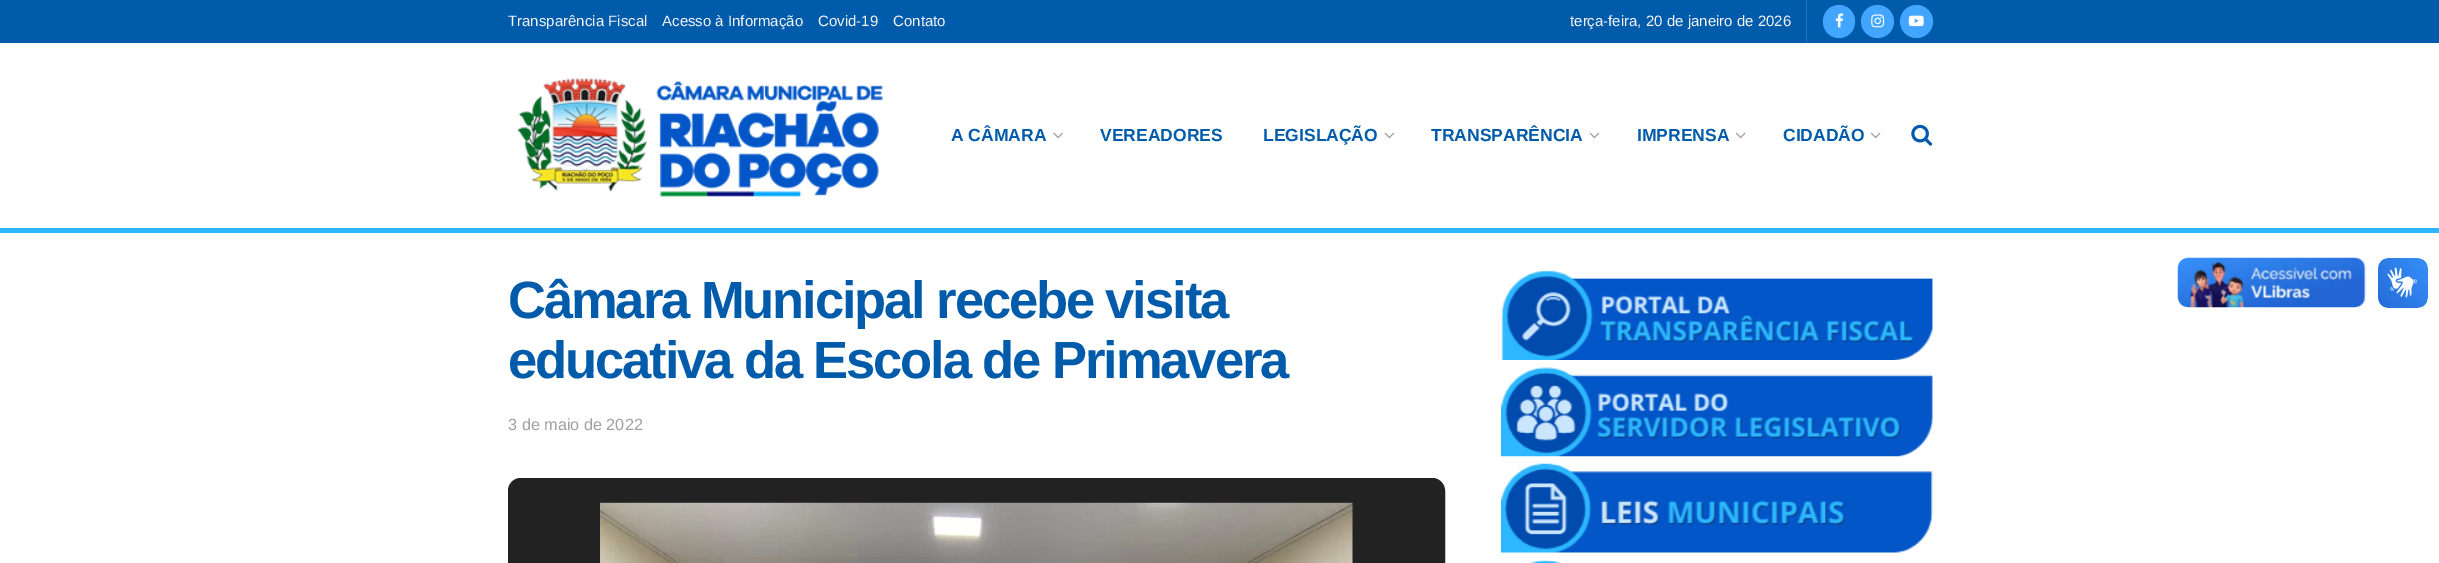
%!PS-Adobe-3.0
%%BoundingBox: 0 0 2439 563
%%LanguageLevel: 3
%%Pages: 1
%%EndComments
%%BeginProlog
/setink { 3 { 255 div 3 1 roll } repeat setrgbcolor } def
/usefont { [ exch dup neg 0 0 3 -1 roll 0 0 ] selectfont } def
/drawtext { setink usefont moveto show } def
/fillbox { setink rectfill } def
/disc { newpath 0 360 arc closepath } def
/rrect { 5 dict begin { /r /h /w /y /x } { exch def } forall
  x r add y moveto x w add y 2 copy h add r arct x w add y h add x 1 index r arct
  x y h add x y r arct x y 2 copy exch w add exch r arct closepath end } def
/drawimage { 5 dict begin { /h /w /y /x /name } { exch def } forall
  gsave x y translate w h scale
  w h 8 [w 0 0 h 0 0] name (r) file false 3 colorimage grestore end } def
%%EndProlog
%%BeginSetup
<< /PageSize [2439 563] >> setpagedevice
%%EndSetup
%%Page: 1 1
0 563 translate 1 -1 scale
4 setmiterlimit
0 0 2439 563 255 255 255 fillbox
0 0 2439 43 0 91 170 fillbox
(Transparência Fiscal) 508 26 /LiberationSans-Regular 15 245 245 245 drawtext
(Acesso à Informação) 662 26 /LiberationSans-Regular 15 245 245 245 drawtext
(Covid-19) 818 26 /LiberationSans-Regular 15 245 245 245 drawtext
(Contato) 893 26 /LiberationSans-Regular 15 245 245 245 drawtext
1806 0 1 43 38 116 183 fillbox
(terça-feira, 20 de janeiro de 2026) 1570 26 /LiberationSans-Regular 15 245 245 245 drawtext
66 165 255 setink
1823 5 32 33 16 rrect fill
(assets/img1.rgb) 1835 13 9 15 drawimage
1877.5 21.5 16.5 disc fill
(assets/img2.rgb) 1871 14 14 14 drawimage
1916.5 21.5 16.5 disc fill
(assets/img3.rgb) 1908 15 16 12 drawimage
0 228 2439 5 44 183 255 fillbox
(assets/img4.rgb) 517 78 366 119 drawimage
(A CÂMARA) 951 141 /LiberationSans-Bold 17.5 0 91 170 drawtext
(assets/img5.rgb) 1053 132 10 7 drawimage
(VEREADORES) 1100 141 /LiberationSans-Bold 17.5 0 91 170 drawtext
(LEGISLAÇÃO) 1263 141 /LiberationSans-Bold 17.5 0 91 170 drawtext
(assets/img6.rgb) 1384 132 11 7 drawimage
(TRANSPARÊNCIA) 1431 141 /LiberationSans-Bold 17.5 0 91 170 drawtext
(assets/img6.rgb) 1589 132 11 7 drawimage
(IMPRENSA) 1637 141 /LiberationSans-Bold 17.5 0 91 170 drawtext
(assets/img7.rgb) 1735 132 11 7 drawimage
(CIDADÃO) 1783 141 /LiberationSans-Bold 17.5 0 91 170 drawtext
(assets/img7.rgb) 1870 132 11 7 drawimage
(assets/img8.rgb) 1911 124 22 22 drawimage
/LiberationSans-Bold 52.5 usefont
508 318 moveto -2.1 0 (Câmara Municipal recebe visita) ashow
508 378 moveto -2.1 0 (educativa da Escola de Primavera) ashow
(3 de maio de 2022) 508 430 /LiberationSans-Regular 16.25 160 160 160 drawtext
34 34 34 setink
520.5 490.5 912 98 0.5 rrect gsave fill grestore
25 setlinewidth
stroke
(assets/img9.rgb) 600 502 753 61 drawimage
(assets/img10.rgb) 1501 270 432 90 drawimage
(assets/img11.rgb) 1501 367 432 90 drawimage
(assets/img12.rgb) 1501 463 432 90 drawimage
(assets/img13.rgb) 1529 560 33 3 drawimage
(assets/img14.rgb) 2177 257 189 51 drawimage
(assets/img15.rgb) 2378 258 50 50 drawimage
showpage
%%EOF
